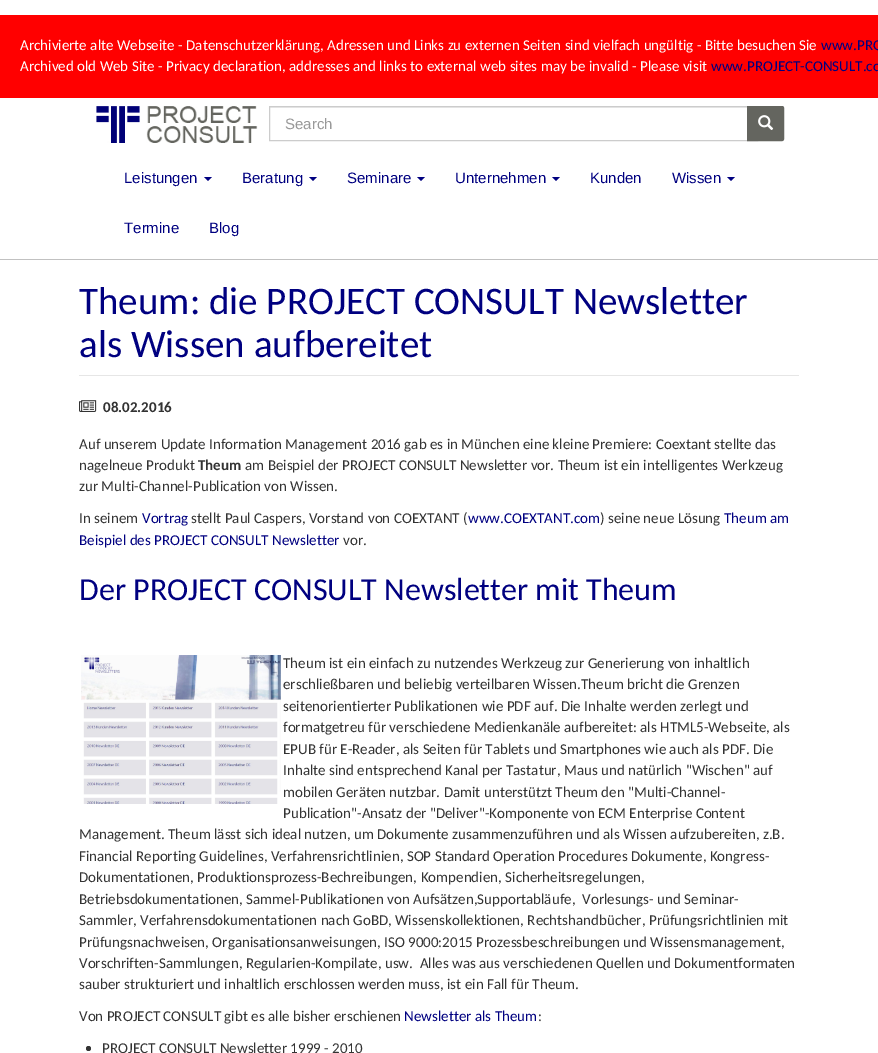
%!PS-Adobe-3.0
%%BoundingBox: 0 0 878 1053
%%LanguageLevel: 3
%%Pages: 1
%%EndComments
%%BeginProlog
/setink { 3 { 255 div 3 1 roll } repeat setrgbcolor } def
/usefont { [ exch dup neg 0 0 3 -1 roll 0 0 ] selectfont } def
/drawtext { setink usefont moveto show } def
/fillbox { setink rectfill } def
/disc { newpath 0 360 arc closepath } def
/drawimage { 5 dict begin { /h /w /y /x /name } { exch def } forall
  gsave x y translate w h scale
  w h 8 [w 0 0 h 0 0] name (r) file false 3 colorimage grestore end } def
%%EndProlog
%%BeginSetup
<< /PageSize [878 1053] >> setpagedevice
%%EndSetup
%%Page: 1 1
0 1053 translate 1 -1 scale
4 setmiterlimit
0 0 878 1053 255 255 255 fillbox
0 15 878 83 255 0 0 fillbox
(Archivierte alte Webseite - Datenschutzerklärung, Adressen und Links zu externen Seiten sind vielfach ungültig - Bitte besuchen Sie) 20 50 /Carlito-Regular 15 255 255 255 drawtext
(www.PRO) 821 50 /Carlito-Regular 15 0 0 128 drawtext
(Archived old Web Site - Privacy declaration, addresses and links to external web sites may be invalid - Please visit) 20 71 /Carlito-Regular 15 255 255 255 drawtext
(www.PROJECT-CONSULT.co) 711 71 /Carlito-Regular 15 0 0 128 drawtext
(assets/img1.rgb) 96 106 162 37 drawimage
270 107 477 1 236 236 236 fillbox
204 204 204 setink
269.5 106.5 488 34 rectstroke
(Search) 285 129 /LiberationSans-Regular 15 153 153 153 drawtext
100 101 95 setink
747.5 106.5 moveto 782 106.5 lineto 783 106.5 783.5 107 783.5 108 curveto 783.5 139 lineto 783.5 140 783 140.5 782 140.5 curveto 747.5 140.5 lineto closepath gsave fill grestore
stroke
(assets/img2.rgb) 758 115 16 15 drawimage
(Leistungen) 124 183 /LiberationSans-Regular 15 0 0 128 drawtext
204 177 moveto 212 177 lineto 208 181 lineto closepath fill
(Beratung) 242 183 /LiberationSans-Regular 15 0 0 128 drawtext
309 177 moveto 317 177 lineto 313 181 lineto closepath fill
(Seminare) 347 183 /LiberationSans-Regular 15 0 0 128 drawtext
417 177 moveto 425 177 lineto 421 181 lineto closepath fill
(Unternehmen) 455 183 /LiberationSans-Regular 15 0 0 128 drawtext
552 177 moveto 560 177 lineto 556 181 lineto closepath fill
(Kunden) 590 183 /LiberationSans-Regular 15 0 0 128 drawtext
(Wissen) 672 183 /LiberationSans-Regular 15 0 0 128 drawtext
727 177 moveto 735 177 lineto 731 181 lineto closepath fill
(Termine) 124 233 /LiberationSans-Regular 15 0 0 128 drawtext
(Blog) 209 233 /LiberationSans-Regular 15 0 0 128 drawtext
0 259 878 1 193 193 193 fillbox
79 375 720 1 230 230 230 fillbox
(Theum: die PROJECT CONSULT Newsletter) 79 314 /Carlito-Regular 39 0 0 128 drawtext
(als Wissen aufbereitet) 79 357 /Carlito-Regular 39 0 0 128 drawtext
(assets/img3.rgb) 79 400 18 12 drawimage
(08.02.2016) 103 412 /Carlito-Bold 15 51 51 51 drawtext
(Auf unserem Update Information Management 2016 gab es in München eine kleine Premiere: Coextant stellte das) 79 449 /Carlito-Regular 15 51 51 51 drawtext
(nagelneue Produkt) 79 470 /Carlito-Regular 15 51 51 51 drawtext
(Theum) 198 470 /Carlito-Bold 15 51 51 51 drawtext
(am Beispiel der PROJECT CONSULT Newsletter vor. Theum ist ein intelligentes Werkzeug) 245 470 /Carlito-Regular 15 51 51 51 drawtext
(zur Multi-Channel-Publication von Wissen.) 79 491 /Carlito-Regular 15 51 51 51 drawtext
(In seinem) 79 523 /Carlito-Regular 15 51 51 51 drawtext
(Vortrag) 142 523 /Carlito-Regular 15 0 0 128 drawtext
(stellt Paul Caspers, Vorstand von COEXTANT \() 191 523 /Carlito-Regular 15 51 51 51 drawtext
(www.COEXTANT.com) 468 523 /Carlito-Regular 15 0 0 128 drawtext
(\) seine neue Lösung) 600 523 /Carlito-Regular 15 51 51 51 drawtext
(Theum am) 724 523 /Carlito-Regular 15 0 0 128 drawtext
(Beispiel des PROJECT CONSULT Newsletter) 79 545 /Carlito-Regular 15 0 0 128 drawtext
(vor.) 343 545 /Carlito-Regular 15 51 51 51 drawtext
(Der PROJECT CONSULT Newsletter mit Theum) 79 600 /Carlito-Regular 32 0 0 128 drawtext
(assets/img4.rgb) 81 655 200 149 drawimage
(Theum ist ein einfach zu nutzendes Werkzeug zur Generierung von inhaltlich) 283 668 /Carlito-Regular 15 51 51 51 drawtext
(erschließbaren und beliebig verteilbaren Wissen.Theum bricht die Grenzen) 283 689 /Carlito-Regular 15 51 51 51 drawtext
(seitenorientierter Publikationen wie PDF auf. Die Inhalte werden zerlegt und) 283 711 /Carlito-Regular 15 51 51 51 drawtext
(formatgetreu für verschiedene Medienkanäle aufbereitet: als HTML5-Webseite, als) 283 732 /Carlito-Regular 15 51 51 51 drawtext
(EPUB für E-Reader, als Seiten für Tablets und Smartphones wie auch als PDF. Die) 283 754 /Carlito-Regular 15 51 51 51 drawtext
(Inhalte sind entsprechend Kanal per Tastatur, Maus und natürlich "Wischen" auf) 283 775 /Carlito-Regular 15 51 51 51 drawtext
(mobilen Geräten nutzbar. Damit unterstützt Theum den "Multi-Channel-) 283 797 /Carlito-Regular 15 51 51 51 drawtext
(Publication"-Ansatz der "Deliver"-Komponente von ECM Enterprise Content) 283 818 /Carlito-Regular 15 51 51 51 drawtext
(Management. Theum lässt sich ideal nutzen, um Dokumente zusammenzuführen und als Wissen aufzubereiten, z.B.) 79 839 /Carlito-Regular 15 51 51 51 drawtext
(Financial Reporting Guidelines, Verfahrensrichtlinien, SOP Standard Operation Procedures Dokumente, Kongress-) 79 861 /Carlito-Regular 15 51 51 51 drawtext
(Dokumentationen, Produktionsprozess-Bechreibungen, Kompendien, Sicherheitsregelungen,) 79 882 /Carlito-Regular 15 51 51 51 drawtext
(Betriebsdokumentationen, Sammel-Publikationen von Aufsätzen,Supportabläufe,  Vorlesungs- und Seminar-) 79 904 /Carlito-Regular 15 51 51 51 drawtext
(Sammler, Verfahrensdokumentationen nach GoBD, Wissenskollektionen, Rechtshandbücher, Prüfungsrichtlinien mit) 79 925 /Carlito-Regular 15 51 51 51 drawtext
(Prüfungsnachweisen, Organisationsanweisungen, ISO 9000:2015 Prozessbeschreibungen und Wissensmanagement,) 79 947 /Carlito-Regular 15 51 51 51 drawtext
(Vorschriften-Sammlungen, Regularien-Kompilate, usw.  Alles was aus verschiedenen Quellen und Dokumentformaten) 79 968 /Carlito-Regular 15 51 51 51 drawtext
(sauber strukturiert und inhaltlich erschlossen werden muss, ist ein Fall für Theum.) 79 989 /Carlito-Regular 15 51 51 51 drawtext
(Von PROJECT CONSULT gibt es alle bisher erschienen) 79 1021 /Carlito-Regular 15 51 51 51 drawtext
(Newsletter als Theum) 404 1021 /Carlito-Regular 15 0 0 128 drawtext
(:) 538 1021 /Carlito-Regular 15 51 51 51 drawtext
88.5 1048.5 2.5 disc fill
(PROJECT CONSULT Newsletter 1999 - 2010) 102 1053 /Carlito-Regular 15 51 51 51 drawtext
showpage
%%EOF
